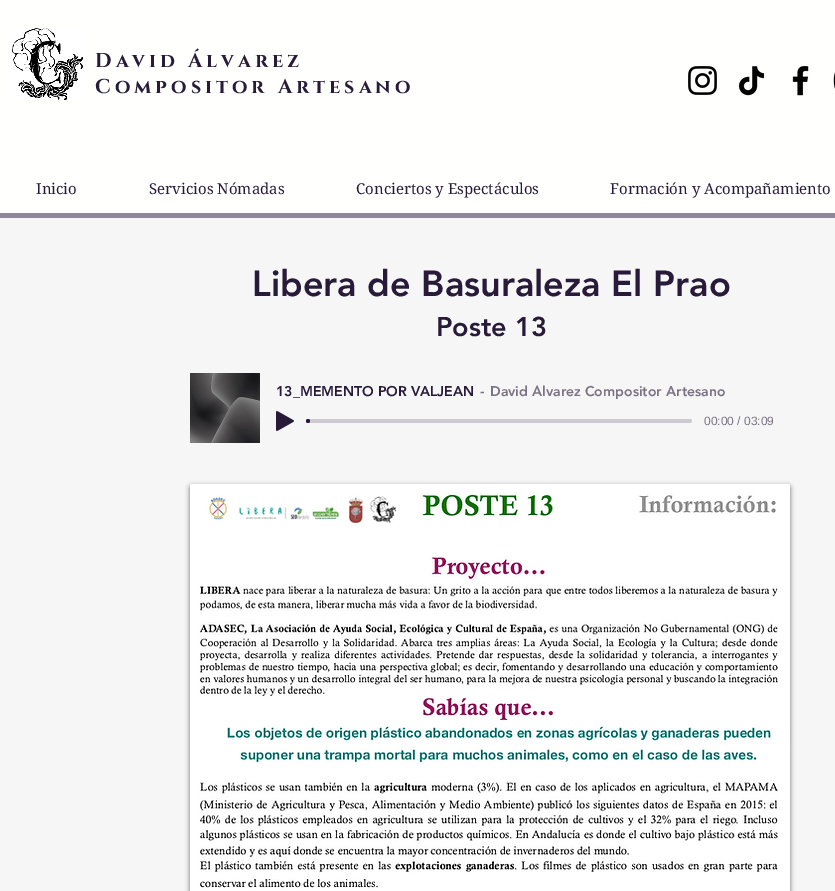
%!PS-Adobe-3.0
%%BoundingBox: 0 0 835 891
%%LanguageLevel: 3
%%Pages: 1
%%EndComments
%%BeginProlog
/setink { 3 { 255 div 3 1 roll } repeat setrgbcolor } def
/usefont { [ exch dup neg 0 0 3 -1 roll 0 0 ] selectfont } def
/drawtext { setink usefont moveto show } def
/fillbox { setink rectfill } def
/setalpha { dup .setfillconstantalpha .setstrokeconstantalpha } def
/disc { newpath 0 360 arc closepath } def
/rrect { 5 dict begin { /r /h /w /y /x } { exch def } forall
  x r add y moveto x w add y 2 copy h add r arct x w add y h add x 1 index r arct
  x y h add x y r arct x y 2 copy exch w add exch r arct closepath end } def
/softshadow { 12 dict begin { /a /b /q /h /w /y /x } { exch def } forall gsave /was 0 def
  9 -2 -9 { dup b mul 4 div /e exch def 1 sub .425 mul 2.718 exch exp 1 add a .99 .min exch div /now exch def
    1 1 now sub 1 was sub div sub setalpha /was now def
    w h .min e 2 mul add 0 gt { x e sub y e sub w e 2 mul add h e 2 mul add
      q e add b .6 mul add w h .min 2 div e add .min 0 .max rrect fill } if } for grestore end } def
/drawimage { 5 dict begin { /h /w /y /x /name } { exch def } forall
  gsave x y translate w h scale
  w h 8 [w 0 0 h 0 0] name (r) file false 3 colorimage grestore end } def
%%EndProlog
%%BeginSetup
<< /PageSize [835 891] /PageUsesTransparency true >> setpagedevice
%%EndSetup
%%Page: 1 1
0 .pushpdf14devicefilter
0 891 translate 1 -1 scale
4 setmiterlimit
0 0 835 891 246 246 246 fillbox
0 213 835 5 143 136 152 fillbox
0 0 835 213 255 255 254 fillbox
(assets/img1.rgb) 12 28 71 72 drawimage
/Cinzel-Bold 20 usefont
40 26 57 setink
95 67 moveto 4 0 (David Álvarez) ashow
95 93 moveto 4 0 (Compositor Artesano) ashow
(assets/img2.rgb) 688 66 29 29 drawimage
(assets/img3.rgb) 738 66 27 30 drawimage
(assets/img4.rgb) 792 66 17 30 drawimage
(assets/img5.rgb) 833 72 2 17 drawimage
(Inicio) 36 194 /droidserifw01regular-Regular 15 40 26 57 drawtext
(Servicios Nómadas) 149 194 /droidserifw01regular-Regular 15 40 26 57 drawtext
(Conciertos y Espectáculos) 356 194 /droidserifw01regular-Regular 15 40 26 57 drawtext
(Formación y Acompañamiento) 610 194 /droidserifw01regular-Regular 15 40 26 57 drawtext
(Libera de Basuraleza El Prao) 252 296 /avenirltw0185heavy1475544-Black 36 40 26 57 drawtext
(Poste 13) 436 336 /avenirltw0185heavy1475544-Black 27 40 26 57 drawtext
(assets/img6.rgb) 190 373 70 70 drawimage
(13_MEMENTO POR VALJEAN) 276 396 /avenirltw0185heavy1475544-Black 14 40 26 57 drawtext
(-) 480 396 /avenirltw0185heavy1475544-Black 14 122 114 133 drawtext
gsave
474 385 251 14 rectclip
(David Álvarez Compositor Artesano) 490 396 /avenirltw0185heavy1475544-Black 14 122 114 133 drawtext
grestore
(assets/img7.rgb) 276 411 18 20 drawimage
205 202 208 setink
308 419 384 4 2 rrect fill
40 26 57 setink
308 421 2 disc fill
(00:00 / 03:09) 704 425 /LiberationSans-Regular 12 122 114 133 drawtext
0 0 0 setink
190 486 600 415 2 2.5 0.53 softshadow
(assets/img8.rgb) 190 484 600 407 drawimage
.poppdf14devicefilter showpage
%%EOF
